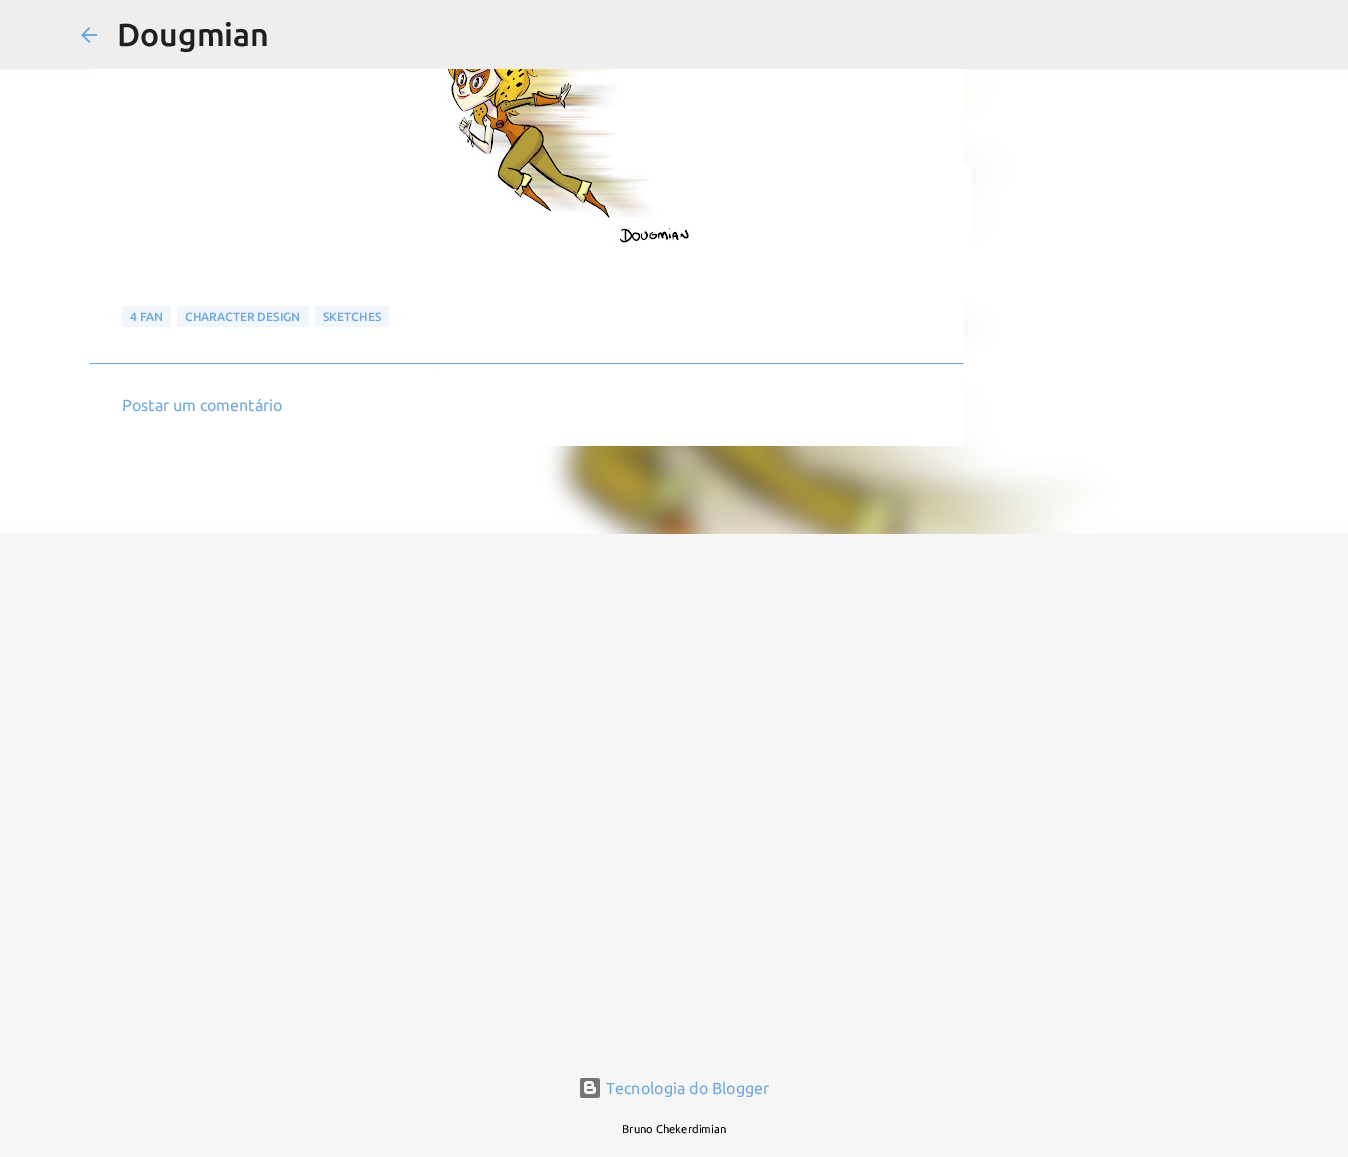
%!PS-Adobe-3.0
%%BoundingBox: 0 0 1348 1157
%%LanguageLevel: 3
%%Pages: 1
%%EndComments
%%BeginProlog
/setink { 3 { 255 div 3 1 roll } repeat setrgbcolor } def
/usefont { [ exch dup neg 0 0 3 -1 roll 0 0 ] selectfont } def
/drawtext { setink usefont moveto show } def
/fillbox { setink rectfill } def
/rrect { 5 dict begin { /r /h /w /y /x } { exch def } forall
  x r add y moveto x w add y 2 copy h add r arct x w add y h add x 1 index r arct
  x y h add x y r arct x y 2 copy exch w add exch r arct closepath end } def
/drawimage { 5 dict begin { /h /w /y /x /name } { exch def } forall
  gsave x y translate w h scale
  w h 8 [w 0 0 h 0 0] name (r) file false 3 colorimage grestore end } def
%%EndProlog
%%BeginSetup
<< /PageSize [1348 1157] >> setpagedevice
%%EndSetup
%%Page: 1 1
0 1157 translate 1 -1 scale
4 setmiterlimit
0 0 1348 1157 246 246 246 fillbox
0 0 1348 69 238 238 238 fillbox
(assets/img1.rgb) 81 27 16 16 drawimage
(Dougmian) 117 46 /Ubuntu-Medium 32 31 31 31 drawtext
(assets/img3.rgb) 0 70 1348 464 drawimage
380 166 592 109 255 255 255 fillbox
90 69 874 294 255 255 255 fillbox
(assets/img2.rgb) 444 69 251 178 drawimage
241 246 252 setink
122 306 49 21 2 rrect fill
(4 FAN) 130 321 /Ubuntu-Medium 12 111 168 220 drawtext
241 246 252 setink
177 306 132 21 2 rrect fill
(CHARACTER DESIGN) 185 321 /Ubuntu-Medium 12 111 168 220 drawtext
241 246 252 setink
315 306 74 21 2 rrect fill
(SKETCHES) 323 321 /Ubuntu-Medium 12 111 168 220 drawtext
441 364 523 82 255 255 255 fillbox
90 363 874 1 111 168 220 fillbox
(Postar um comentário) 122 411 /Ubuntu-Regular 16 111 168 220 drawtext
(assets/img4.rgb) 580 1078 20 20 drawimage
(Tecnologia do Blogger) 606 1094 /Ubuntu-Regular 16 111 168 220 drawtext
(Bruno Chekerdimian) 622 1133 /Ubuntu-Regular 11.25 0 0 0 drawtext
showpage
%%EOF
